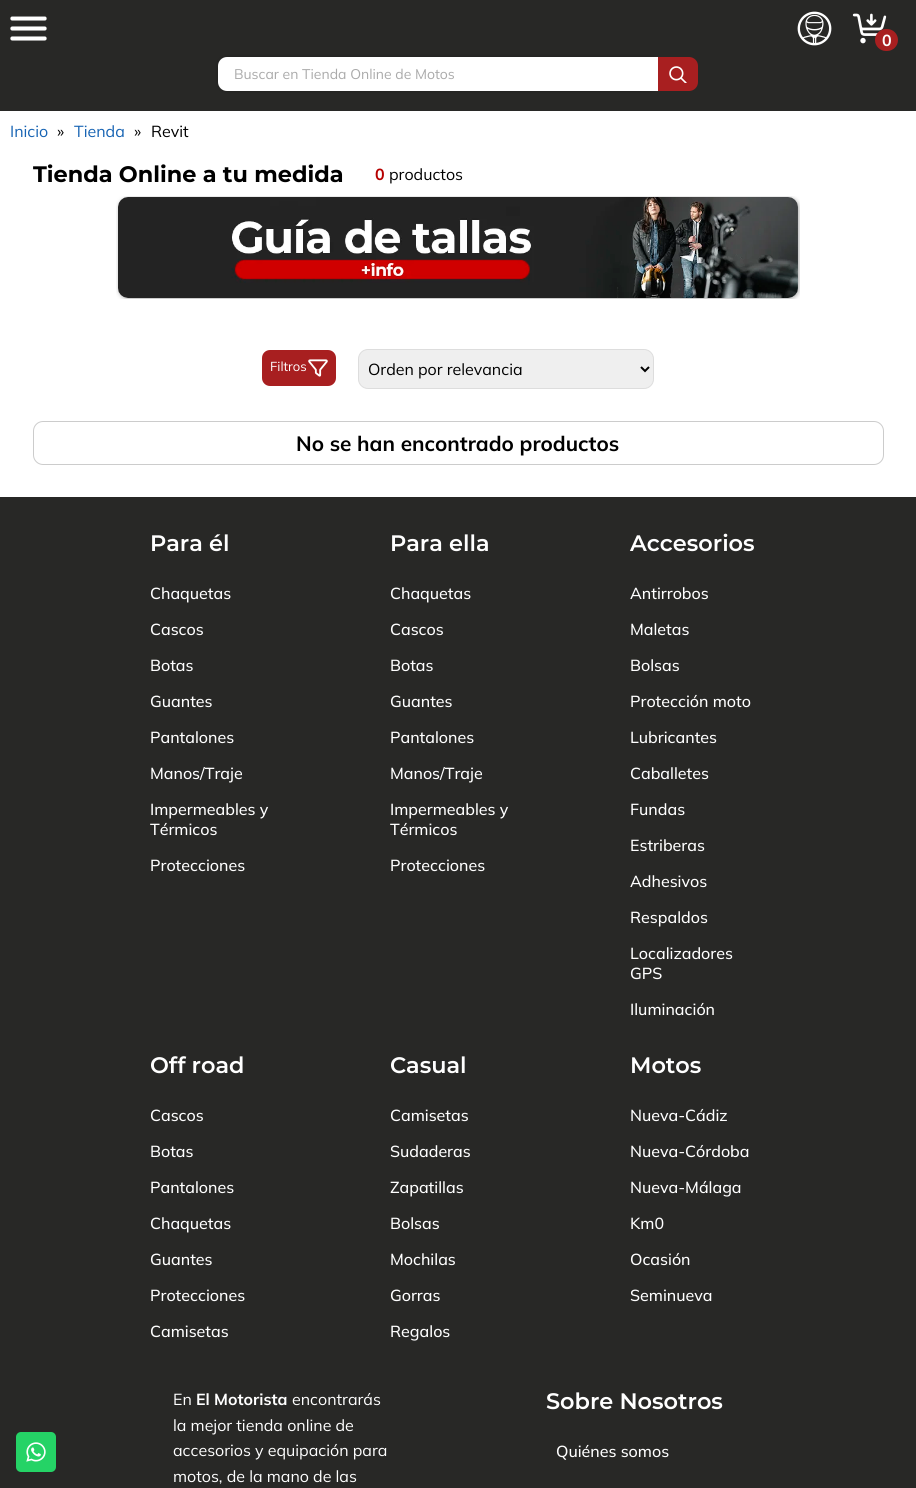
import math
import cairo

surface = cairo.ImageSurface(cairo.FORMAT_RGB24, 916, 1488)
cr = cairo.Context(surface)
options = cairo.FontOptions()
options.set_hint_metrics(cairo.HINT_METRICS_OFF)
options.set_hint_style(cairo.HINT_STYLE_NONE)
cr.set_font_options(options)
cr.set_miter_limit(4)


def rgb(code):
    cr.set_source_rgb(*(v / 255 for v in bytes.fromhex(code[-6:])))


def rrect(x, y, w, h, r):
    cr.new_sub_path()
    for i, (u, v) in enumerate([(x + w - r, y + h - r), (x + r, y + h - r), (x + r, y + r), (x + w - r, y + r)]):
        cr.arc(u, v, r, i * math.pi / 2, (i + 1) * math.pi / 2)
    cr.close_path()


def soft_shadow(x, y, w, h, r, blur, alpha):
    cr.push_group_with_content(cairo.CONTENT_ALPHA)
    cr.set_operator(cairo.OPERATOR_SOURCE)
    for i in range(15, -16, -2):
        e = blur * i / 6
        if min(w, h) + 2 * e > 0:
            cr.set_source_rgba(0, 0, 0, alpha * math.erfc((i - 1) / 8.5) / 2)
            rrect(x - e, y - e, w + 2 * e, h + 2 * e, max(0, min(r + e + blur * .6, min(w, h) / 2 + e)))
            cr.fill()
    cr.mask(cr.pop_group())


def image(path, x, y, w, h):
    cr.save()
    cr.set_source_surface(cairo.ImageSurface.create_from_png(path), x, y)
    cr.rectangle(x, y, w, h)
    cr.fill()
    cr.restore()


rgb("#ffffff")
cr.paint()
rgb("#282826")
cr.rectangle(0, 0, 916, 111)
cr.fill()
image("img/1.png", 10, 16, 37, 25)
image("img/2.png", 797, 11, 35, 35)
image("img/3.png", 852, 13, 35, 31)
rgb("#a81f20")
rrect(875, 29, 23, 22, 11)
cr.fill()
rgb("#000000")
soft_shadow(218, 57, 440, 34, 9, 2, 0.25)
rgb("#ffffff")
cr.new_path()
cr.move_to(227, 57)
cr.line_to(658, 57)
cr.line_to(658, 91)
cr.line_to(227, 91)
cr.curve_to(222, 91, 218, 87, 218, 82)
cr.line_to(218, 66)
cr.curve_to(218, 61, 222, 57, 227, 57)
cr.close_path()
cr.fill()
rgb("#a81f20")
cr.new_path()
cr.move_to(658, 57)
cr.line_to(689, 57)
cr.curve_to(694, 57, 698, 61, 698, 66)
cr.line_to(698, 82)
cr.curve_to(698, 87, 694, 91, 689, 91)
cr.line_to(658, 91)
cr.close_path()
cr.fill()
image("img/4.png", 669, 66, 18, 17)
image("img/5.png", 116, 196, 684, 103)
rrect(262, 350, 74, 36, 8)
cr.fill()
image("img/6.png", 308, 359, 20, 18)
rgb("#efefef")
rrect(358.5, 349.5, 295, 39, 9.5)
cr.fill_preserve()
rgb("#dddddd")
cr.set_line_width(1)
cr.stroke()
cr.new_path()
cr.move_to(641, 367)
cr.line_to(645, 371)
cr.line_to(649, 367)
rgb("#000000")
cr.set_line_width(2)
cr.stroke()
rrect(33.5, 421.5, 850, 43, 9.5)
rgb("#cccccc")
cr.set_line_width(1)
cr.stroke()
rgb("#282826")
cr.rectangle(0, 497, 916, 991)
cr.fill()
rgb("#25d366")
rrect(16, 1432, 40, 40, 5)
cr.fill()
image("img/7.png", 26, 1442, 20, 20)
cr.select_font_face("Mulish", cairo.FONT_SLANT_NORMAL, cairo.FONT_WEIGHT_BOLD)
cr.set_font_size(16)
rgb("#ffffff")
cr.move_to(882, 46)
cr.show_text("0")
cr.select_font_face("Mulish")
cr.set_font_size(14)
rgb("#aaaaaa")
cr.move_to(234, 79)
cr.show_text("Buscar en Tienda Online de Motos")
cr.set_font_size(16)
rgb("#1663b3")
cr.move_to(10, 137)
cr.show_text("Inicio")
rgb("#000000")
cr.move_to(57, 137)
cr.show_text("»")
rgb("#1663b3")
cr.move_to(74, 137)
cr.show_text("Tienda")
rgb("#000000")
cr.move_to(134, 137)
cr.show_text("»")
cr.move_to(151, 137)
cr.show_text("Revit")
cr.save()
cr.rectangle(33, 160, 310, 28)
cr.clip()
cr.select_font_face("Montserrat", cairo.FONT_SLANT_NORMAL, cairo.FONT_WEIGHT_BOLD)
cr.set_font_size(22.4)
cr.move_to(33, 182)
cr.show_text("Tienda Online a tu medida")
cr.restore()
cr.select_font_face("Mulish", cairo.FONT_SLANT_NORMAL, cairo.FONT_WEIGHT_BOLD)
rgb("#b60000")
cr.move_to(375, 180)
cr.show_text("0")
cr.select_font_face("Mulish")
rgb("#000000")
cr.move_to(389, 180)
cr.show_text("productos")
cr.set_font_size(13)
rgb("#ffffff")
cr.move_to(270, 371)
cr.show_text("Filtros")
cr.set_font_size(16)
rgb("#000000")
cr.move_to(368, 375)
cr.show_text("Orden por relevancia")
cr.select_font_face("Mulish", cairo.FONT_SLANT_NORMAL, cairo.FONT_WEIGHT_BOLD)
cr.set_font_size(20.75)
cr.move_to(296, 451)
cr.show_text("No se han encontrado productos")
cr.select_font_face("Montserrat SemiBold")
cr.set_font_size(22.4)
rgb("#ffffff")
cr.move_to(150, 551)
cr.show_text("Para él")
cr.select_font_face("Mulish Medium")
cr.set_font_size(16)
for x, y, s in [
    (150, 599, "Chaquetas"),
    (150, 635, "Cascos"),
    (150, 671, "Botas"),
    (150, 707, "Guantes"),
    (150, 743, "Pantalones"),
    (150, 779, "Manos/Traje"),
    (150, 815, "Impermeables y"),
    (150, 835, "Térmicos"),
    (150, 871, "Protecciones"),
]:
    cr.move_to(x, y)
    cr.show_text(s)
cr.select_font_face("Montserrat SemiBold")
cr.set_font_size(22.4)
cr.move_to(390, 551)
cr.show_text("Para ella")
cr.select_font_face("Mulish Medium")
cr.set_font_size(16)
for x, y, s in [
    (390, 599, "Chaquetas"),
    (390, 635, "Cascos"),
    (390, 671, "Botas"),
    (390, 707, "Guantes"),
    (390, 743, "Pantalones"),
    (390, 779, "Manos/Traje"),
    (390, 815, "Impermeables y"),
    (390, 835, "Térmicos"),
    (390, 871, "Protecciones"),
]:
    cr.move_to(x, y)
    cr.show_text(s)
cr.select_font_face("Montserrat SemiBold")
cr.set_font_size(22.4)
cr.move_to(630, 551)
cr.show_text("Accesorios")
cr.select_font_face("Mulish Medium")
cr.set_font_size(16)
for x, y, s in [
    (630, 599, "Antirrobos"),
    (630, 635, "Maletas"),
    (630, 671, "Bolsas"),
    (630, 707, "Protección moto"),
    (630, 743, "Lubricantes"),
    (630, 779, "Caballetes"),
    (630, 815, "Fundas"),
    (630, 851, "Estriberas"),
    (630, 887, "Adhesivos"),
    (630, 923, "Respaldos"),
    (630, 959, "Localizadores"),
    (630, 979, "GPS"),
    (630, 1015, "Iluminación"),
]:
    cr.move_to(x, y)
    cr.show_text(s)
cr.select_font_face("Montserrat SemiBold")
cr.set_font_size(22.4)
cr.move_to(150, 1073)
cr.show_text("Off road")
cr.select_font_face("Mulish Medium")
cr.set_font_size(16)
for x, y, s in [
    (150, 1121, "Cascos"),
    (150, 1157, "Botas"),
    (150, 1193, "Pantalones"),
    (150, 1229, "Chaquetas"),
    (150, 1265, "Guantes"),
    (150, 1301, "Protecciones"),
    (150, 1337, "Camisetas"),
]:
    cr.move_to(x, y)
    cr.show_text(s)
cr.select_font_face("Montserrat SemiBold")
cr.set_font_size(22.4)
cr.move_to(390, 1073)
cr.show_text("Casual")
cr.select_font_face("Mulish Medium")
cr.set_font_size(16)
for x, y, s in [
    (390, 1121, "Camisetas"),
    (390, 1157, "Sudaderas"),
    (390, 1193, "Zapatillas"),
    (390, 1229, "Bolsas"),
    (390, 1265, "Mochilas"),
    (390, 1301, "Gorras"),
    (390, 1337, "Regalos"),
]:
    cr.move_to(x, y)
    cr.show_text(s)
cr.select_font_face("Montserrat SemiBold")
cr.set_font_size(22.4)
cr.move_to(630, 1073)
cr.show_text("Motos")
cr.select_font_face("Mulish Medium")
cr.set_font_size(16)
for x, y, s in [
    (630, 1121, "Nueva-Cádiz"),
    (630, 1157, "Nueva-Córdoba"),
    (630, 1193, "Nueva-Málaga"),
    (630, 1229, "Km0"),
    (630, 1265, "Ocasión"),
    (630, 1301, "Seminueva"),
]:
    cr.move_to(x, y)
    cr.show_text(s)
cr.select_font_face("Mulish")
cr.move_to(173, 1405)
cr.show_text("En")
cr.select_font_face("Mulish", cairo.FONT_SLANT_NORMAL, cairo.FONT_WEIGHT_BOLD)
cr.move_to(196, 1405)
cr.show_text("El Motorista")
cr.select_font_face("Mulish")
for x, y, s in [
    (292, 1405, "encontrarás"),
    (173, 1431, "la mejor tienda online de"),
    (173, 1456, "accesorios y equipación para"),
    (173, 1482, "motos, de la mano de las"),
]:
    cr.move_to(x, y)
    cr.show_text(s)
cr.select_font_face("Montserrat SemiBold")
cr.set_font_size(22.4)
cr.move_to(546, 1409)
cr.show_text("Sobre Nosotros")
cr.select_font_face("Mulish Medium")
cr.set_font_size(16)
cr.move_to(556, 1457)
cr.show_text("Quiénes somos")
surface.write_to_png("page.png")
